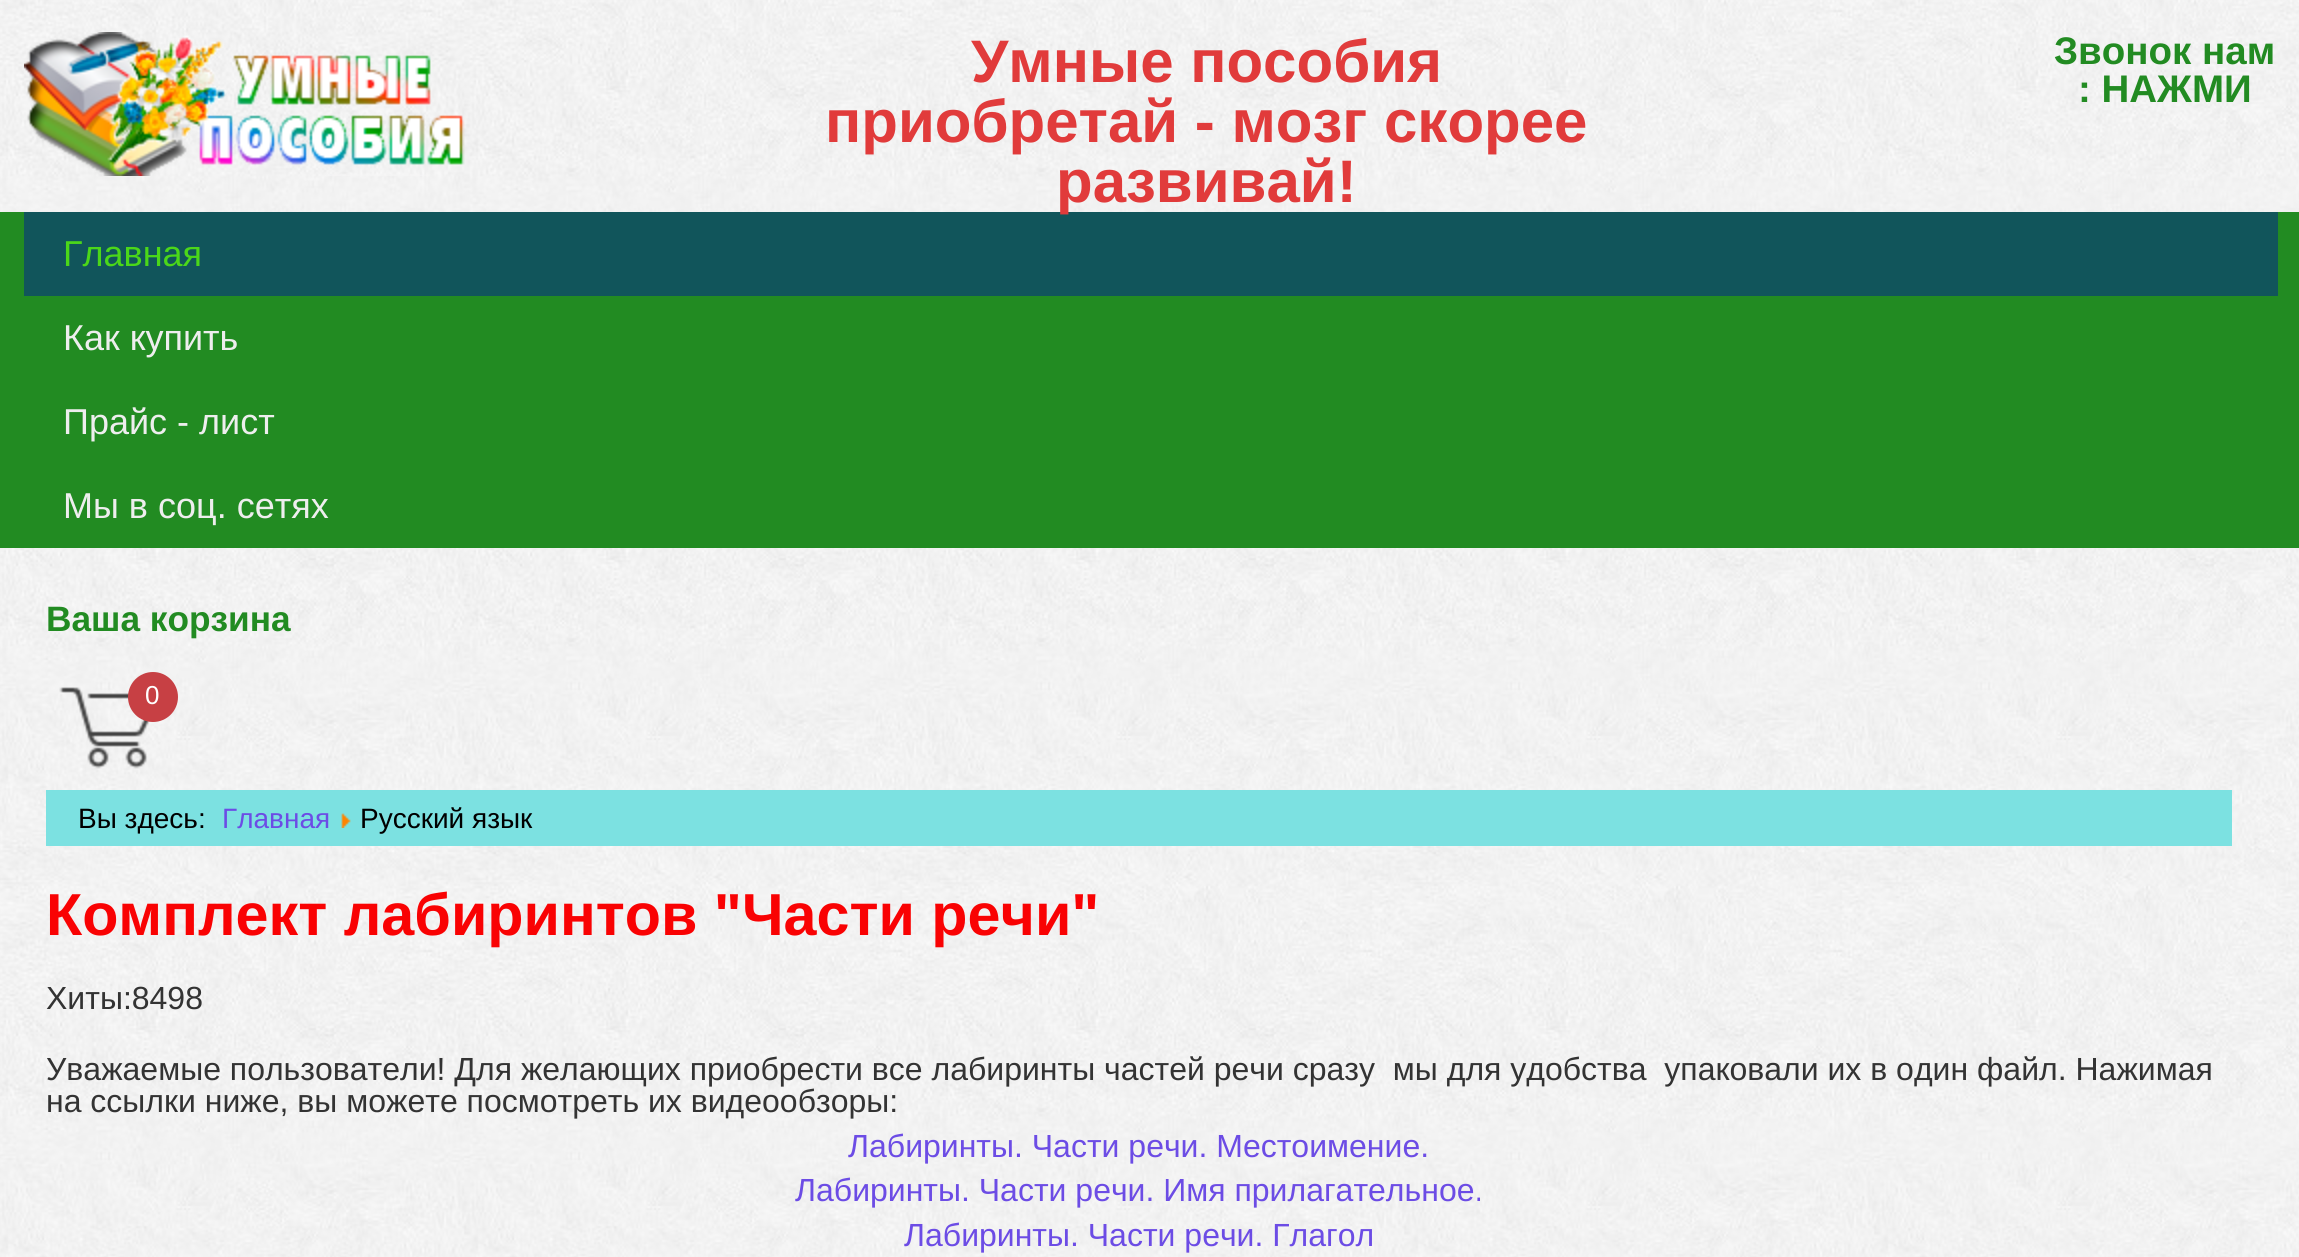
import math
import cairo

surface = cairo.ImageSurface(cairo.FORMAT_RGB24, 2299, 1257)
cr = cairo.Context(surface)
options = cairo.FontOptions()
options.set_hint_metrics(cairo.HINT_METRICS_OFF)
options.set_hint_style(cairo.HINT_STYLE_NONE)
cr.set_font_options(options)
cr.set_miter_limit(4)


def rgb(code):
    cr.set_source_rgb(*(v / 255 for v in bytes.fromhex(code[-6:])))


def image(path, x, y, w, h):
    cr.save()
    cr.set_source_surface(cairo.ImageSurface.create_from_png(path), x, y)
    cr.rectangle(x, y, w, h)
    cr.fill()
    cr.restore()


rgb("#ffffff")
cr.paint()
image("img/1.png", 0, 0, 2299, 1257)
image("img/2.png", 24, 32, 441, 144)
rgb("#228b22")
cr.rectangle(0, 212, 2299, 336)
cr.fill()
rgb("#11555b")
cr.rectangle(24, 212, 2254, 84)
cr.fill()
image("img/3.png", 59, 687, 91, 82)
rgb("#c74044")
cr.arc(153, 697, 25, 0, 2 * math.pi)
cr.fill()
rgb("#7ce1e1")
cr.rectangle(46, 790, 2186, 56)
cr.fill()
image("img/4.png", 341, 813, 10, 15)
cr.select_font_face("Liberation Sans", cairo.FONT_SLANT_NORMAL, cairo.FONT_WEIGHT_BOLD)
cr.set_font_size(60)
rgb("#e13b3b")
for x, y, s in [
    (971, 82, "Умные пособия"),
    (825, 142, "приобретай - мозг скорее"),
    (1056, 202, "развивай!"),
]:
    cr.move_to(x, y)
    cr.show_text(s)
cr.set_font_size(38.5)
rgb("#228b22")
cr.move_to(2054, 64)
cr.show_text("Звонок нам")
cr.move_to(2078, 102)
cr.show_text(": НАЖМИ")
cr.select_font_face("Liberation Sans")
cr.set_font_size(36)
rgb("#4bd719")
cr.move_to(63, 266)
cr.show_text("Главная")
rgb("#eeeeee")
for x, y, s in [
    (63, 350, "Как купить"),
    (63, 434, "Прайс - лист"),
    (63, 518, "Мы в соц. сетях"),
]:
    cr.move_to(x, y)
    cr.show_text(s)
cr.select_font_face("Liberation Sans", cairo.FONT_SLANT_NORMAL, cairo.FONT_WEIGHT_BOLD)
cr.set_font_size(35.25)
rgb("#228b22")
cr.move_to(46, 631)
cr.show_text("Ваша корзина")
cr.select_font_face("Liberation Sans")
cr.set_font_size(26)
rgb("#ffffff")
cr.move_to(145, 704)
cr.show_text("0")
cr.set_font_size(28)
rgb("#000000")
cr.move_to(78, 828)
cr.show_text("Вы здесь:")
rgb("#6c4ce5")
cr.move_to(222, 828)
cr.show_text("Главная")
rgb("#000000")
cr.move_to(360, 828)
cr.show_text("Русский язык")
cr.select_font_face("Liberation Sans", cairo.FONT_SLANT_NORMAL, cairo.FONT_WEIGHT_BOLD)
cr.set_font_size(59.25)
rgb("#f90203")
cr.move_to(46, 935)
cr.show_text("Комплект лабиринтов \"Части речи\"")
cr.select_font_face("Liberation Sans")
cr.set_font_size(32)
rgb("#333333")
for x, y, s in [
    (46, 1009, "Хиты:8498"),
    (46, 1080, "Уважаемые пользователи! Для желающих приобрести все лабиринты частей речи сразу  мы для удобства  упаковали их в один файл. Нажимая"),
    (46, 1112, "на ссылки ниже, вы можете посмотреть их видеообзоры:"),
]:
    cr.move_to(x, y)
    cr.show_text(s)
rgb("#6c4ce5")
for x, y, s in [
    (848, 1157, "Лабиринты. Части речи. Местоимение."),
    (795, 1201, "Лабиринты. Части речи. Имя прилагательное."),
    (904, 1246, "Лабиринты. Части речи. Глагол"),
]:
    cr.move_to(x, y)
    cr.show_text(s)
surface.write_to_png("page.png")
